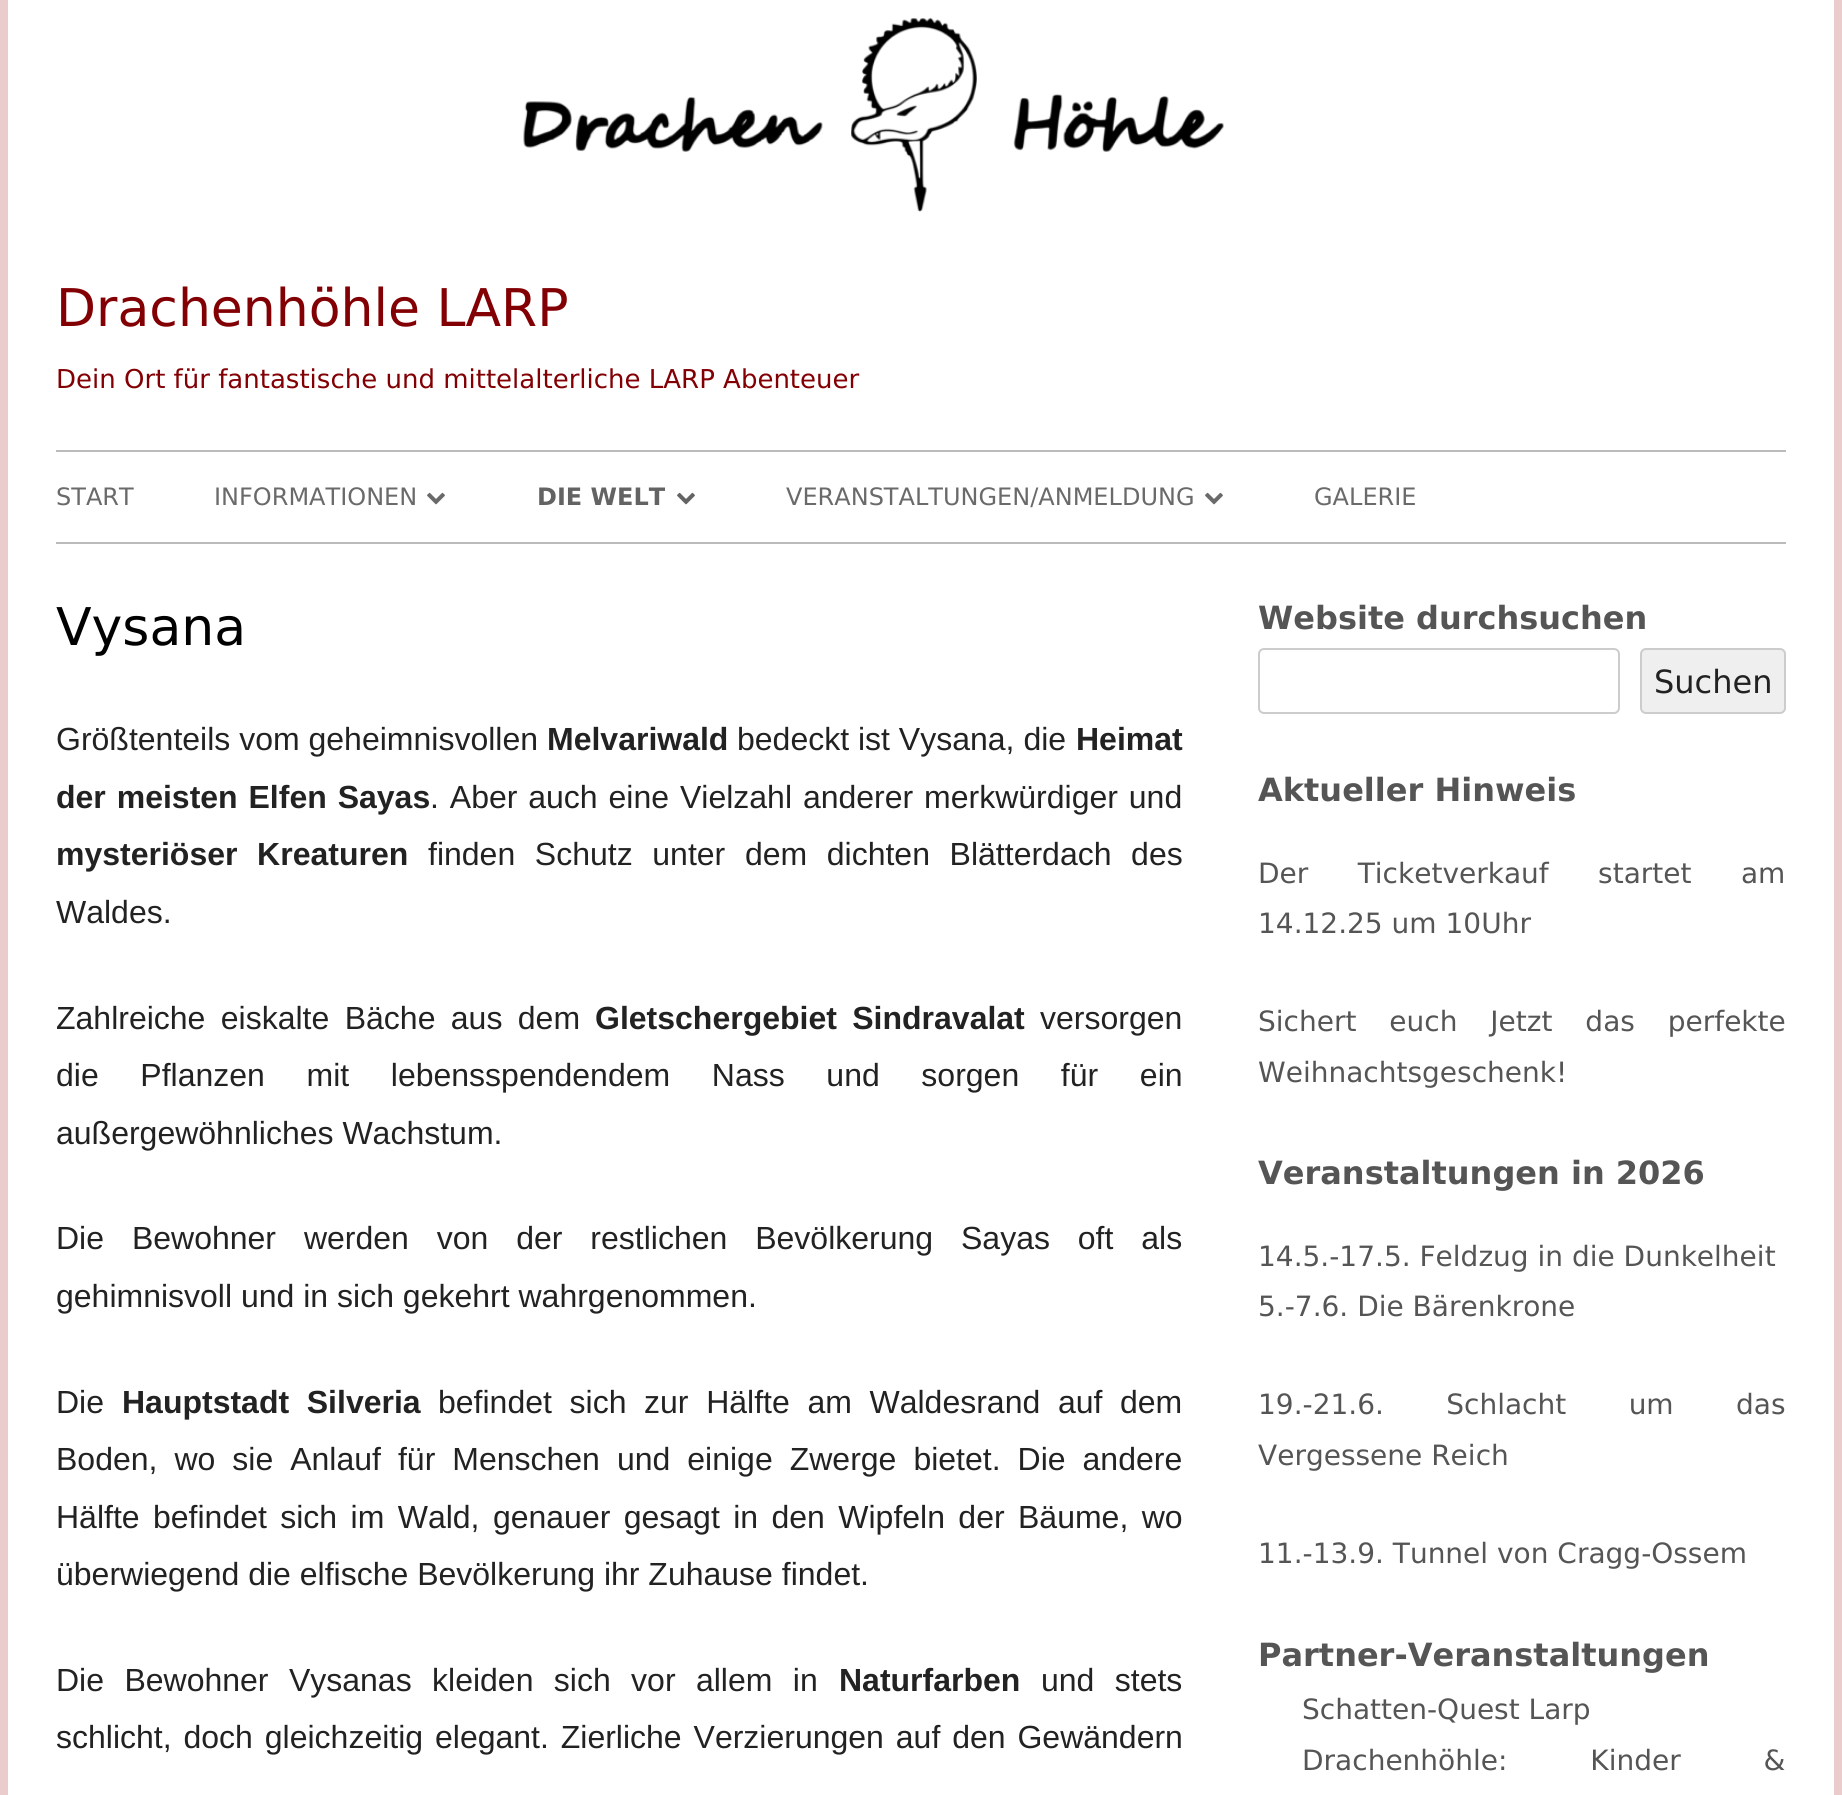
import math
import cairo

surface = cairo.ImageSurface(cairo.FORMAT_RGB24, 1842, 1795)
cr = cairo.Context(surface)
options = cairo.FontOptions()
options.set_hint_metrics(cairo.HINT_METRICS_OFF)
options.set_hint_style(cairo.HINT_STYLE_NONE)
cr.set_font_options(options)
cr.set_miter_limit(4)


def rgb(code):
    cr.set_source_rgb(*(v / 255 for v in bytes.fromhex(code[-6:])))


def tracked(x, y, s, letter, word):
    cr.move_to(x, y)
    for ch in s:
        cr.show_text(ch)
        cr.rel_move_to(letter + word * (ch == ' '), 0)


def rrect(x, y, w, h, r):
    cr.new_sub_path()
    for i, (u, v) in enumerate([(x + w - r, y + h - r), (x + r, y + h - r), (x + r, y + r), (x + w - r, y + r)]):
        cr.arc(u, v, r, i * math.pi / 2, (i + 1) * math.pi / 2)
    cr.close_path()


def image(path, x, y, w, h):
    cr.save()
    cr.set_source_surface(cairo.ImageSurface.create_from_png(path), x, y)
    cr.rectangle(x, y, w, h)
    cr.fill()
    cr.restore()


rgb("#ffffff")
cr.paint()
cr.rectangle(4, -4, 1834, 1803)
rgb("#eacccc")
cr.set_line_width(8)
cr.stroke()
image("img/1.png", 523, 17, 701, 195)
rgb("#bbbbbb")
cr.rectangle(56, 450, 1730, 2)
cr.fill()
cr.rectangle(56, 542, 1730, 2)
cr.fill()
image("img/2.png", 427, 492, 18, 13)
image("img/3.png", 677, 492, 18, 13)
image("img/2.png", 1205, 492, 18, 13)
rrect(1259, 649, 360, 64, 5)
rgb("#cccccc")
cr.set_line_width(2)
cr.stroke()
rgb("#efefef")
rrect(1641, 649, 144, 64, 5)
cr.fill_preserve()
rgb("#cccccc")
cr.stroke()
cr.select_font_face("DejaVu Sans")
cr.set_font_size(52)
rgb("#820004")
cr.move_to(56, 326)
cr.show_text("Drachenhöhle LARP")
cr.set_font_size(26)
cr.move_to(56, 388)
cr.show_text("Dein Ort für fantastische und mittelalterliche LARP Abenteuer")
cr.set_font_size(24)
rgb("#6a6a6a")
cr.move_to(56, 505)
cr.show_text("START")
cr.move_to(214, 505)
cr.show_text("INFORMATIONEN")
cr.select_font_face("DejaVu Sans", cairo.FONT_SLANT_NORMAL, cairo.FONT_WEIGHT_BOLD)
rgb("#636363")
cr.move_to(537, 505)
cr.show_text("DIE WELT")
cr.select_font_face("DejaVu Sans")
rgb("#6a6a6a")
cr.move_to(786, 505)
cr.show_text("VERANSTALTUNGEN/ANMELDUNG")
cr.move_to(1314, 505)
cr.show_text("GALERIE")
cr.set_font_size(52)
rgb("#000000")
cr.move_to(56, 645)
cr.show_text("Vysana")
cr.select_font_face("Liberation Sans")
cr.set_font_size(32)
rgb("#222222")
cr.move_to(56, 750)
cr.show_text("Größtenteils vom geheimnisvollen")
cr.select_font_face("Liberation Sans", cairo.FONT_SLANT_NORMAL, cairo.FONT_WEIGHT_BOLD)
cr.move_to(547, 750)
cr.show_text("Melvariwald")
cr.select_font_face("Liberation Sans")
cr.move_to(737, 750)
cr.show_text("bedeckt ist Vysana, die")
cr.select_font_face("Liberation Sans", cairo.FONT_SLANT_NORMAL, cairo.FONT_WEIGHT_BOLD)
cr.move_to(1076, 750)
cr.show_text("Heimat")
tracked(56, 808, "der meisten Elfen Sayas", 0, 2)
cr.select_font_face("Liberation Sans")
tracked(430, 808, ". Aber auch eine Vielzahl anderer merkwürdiger und", 0, 2)
cr.select_font_face("Liberation Sans", cairo.FONT_SLANT_NORMAL, cairo.FONT_WEIGHT_BOLD)
tracked(56, 865, "mysteriöser Kreaturen", 0, 10.75)
cr.select_font_face("Liberation Sans")
tracked(428, 865, "finden Schutz unter dem dichten Blätterdach des", 0, 10.75)
cr.move_to(56, 923)
cr.show_text("Waldes.")
tracked(56, 1029, "Zahlreiche eiskalte Bäche aus dem", 0, 6.5)
cr.select_font_face("Liberation Sans", cairo.FONT_SLANT_NORMAL, cairo.FONT_WEIGHT_BOLD)
tracked(595, 1029, "Gletschergebiet Sindravalat", 0, 6.5)
cr.select_font_face("Liberation Sans")
cr.move_to(1040, 1029)
cr.show_text("versorgen")
tracked(56, 1086, "die Pflanzen mit lebensspendendem Nass und sorgen für ein", 0, 32.75)
cr.move_to(56, 1144)
cr.show_text("außergewöhnliches Wachstum.")
tracked(56, 1249, "Die Bewohner werden von der restlichen Bevölkerung Sayas oft als", 0, 19)
cr.move_to(56, 1307)
cr.show_text("gehimnisvoll und in sich gekehrt wahrgenommen.")
cr.move_to(56, 1413)
cr.show_text("Die")
cr.select_font_face("Liberation Sans", cairo.FONT_SLANT_NORMAL, cairo.FONT_WEIGHT_BOLD)
tracked(122, 1413, "Hauptstadt Silveria", 0, 8.75)
cr.select_font_face("Liberation Sans")
tracked(438, 1413, "befindet sich zur Hälfte am Waldesrand auf dem", 0, 8.75)
tracked(56, 1470, "Boden, wo sie Anlauf für Menschen und einige Zwerge bietet. Die andere", 0, 8.1)
tracked(56, 1528, "Hälfte befindet sich im Wald, genauer gesagt in den Wipfeln der Bäume, wo", 0, 4.5)
cr.move_to(56, 1585)
cr.show_text("überwiegend die elfische Bevölkerung ihr Zuhause findet.")
tracked(56, 1691, "Die Bewohner Vysanas kleiden sich vor allem in", 0, 11.5)
cr.select_font_face("Liberation Sans", cairo.FONT_SLANT_NORMAL, cairo.FONT_WEIGHT_BOLD)
cr.move_to(839, 1691)
cr.show_text("Naturfarben")
cr.select_font_face("Liberation Sans")
tracked(1041, 1691, "und stets", 0, 11.5)
tracked(56, 1748, "schlicht, doch gleichzeitig elegant. Zierliche Verzierungen auf den Gewändern", 0, 3)
cr.select_font_face("DejaVu Sans", cairo.FONT_SLANT_NORMAL, cairo.FONT_WEIGHT_BOLD)
rgb("#555555")
cr.move_to(1258, 629)
cr.show_text("Website durchsuchen")
cr.select_font_face("DejaVu Sans")
rgb("#222222")
cr.move_to(1654, 693)
cr.show_text("Suchen")
cr.select_font_face("DejaVu Sans", cairo.FONT_SLANT_NORMAL, cairo.FONT_WEIGHT_BOLD)
rgb("#555555")
cr.move_to(1258, 801)
cr.show_text("Aktueller Hinweis")
cr.select_font_face("DejaVu Sans")
cr.set_font_size(28)
tracked(1258, 883, "Der Ticketverkauf startet am", 0, 40.5)
cr.move_to(1258, 933)
cr.show_text("14.12.25 um 10Uhr")
tracked(1258, 1031, "Sichert euch Jetzt das perfekte", 0, 24)
cr.move_to(1258, 1082)
cr.show_text("Weihnachtsgeschenk!")
cr.select_font_face("DejaVu Sans", cairo.FONT_SLANT_NORMAL, cairo.FONT_WEIGHT_BOLD)
cr.set_font_size(32)
cr.move_to(1258, 1184)
cr.show_text("Veranstaltungen in 2026")
cr.select_font_face("DejaVu Sans")
cr.set_font_size(28)
cr.move_to(1258, 1266)
cr.show_text("14.5.-17.5. Feldzug in die Dunkelheit")
cr.move_to(1258, 1316)
cr.show_text("5.-7.6. Die Bärenkrone")
tracked(1258, 1414, "19.-21.6. Schlacht um das", 0, 53.5)
cr.move_to(1258, 1465)
cr.show_text("Vergessene Reich")
cr.move_to(1258, 1563)
cr.show_text("11.-13.9. Tunnel von Cragg-Ossem")
cr.select_font_face("DejaVu Sans", cairo.FONT_SLANT_NORMAL, cairo.FONT_WEIGHT_BOLD)
cr.set_font_size(32)
cr.move_to(1258, 1666)
cr.show_text("Partner-Veranstaltungen")
cr.select_font_face("DejaVu Sans")
cr.set_font_size(28)
cr.move_to(1302, 1719)
cr.show_text("Schatten-Quest Larp")
tracked(1302, 1770, "Drachenhöhle: Kinder &", 0, 74)
surface.write_to_png("page.png")
